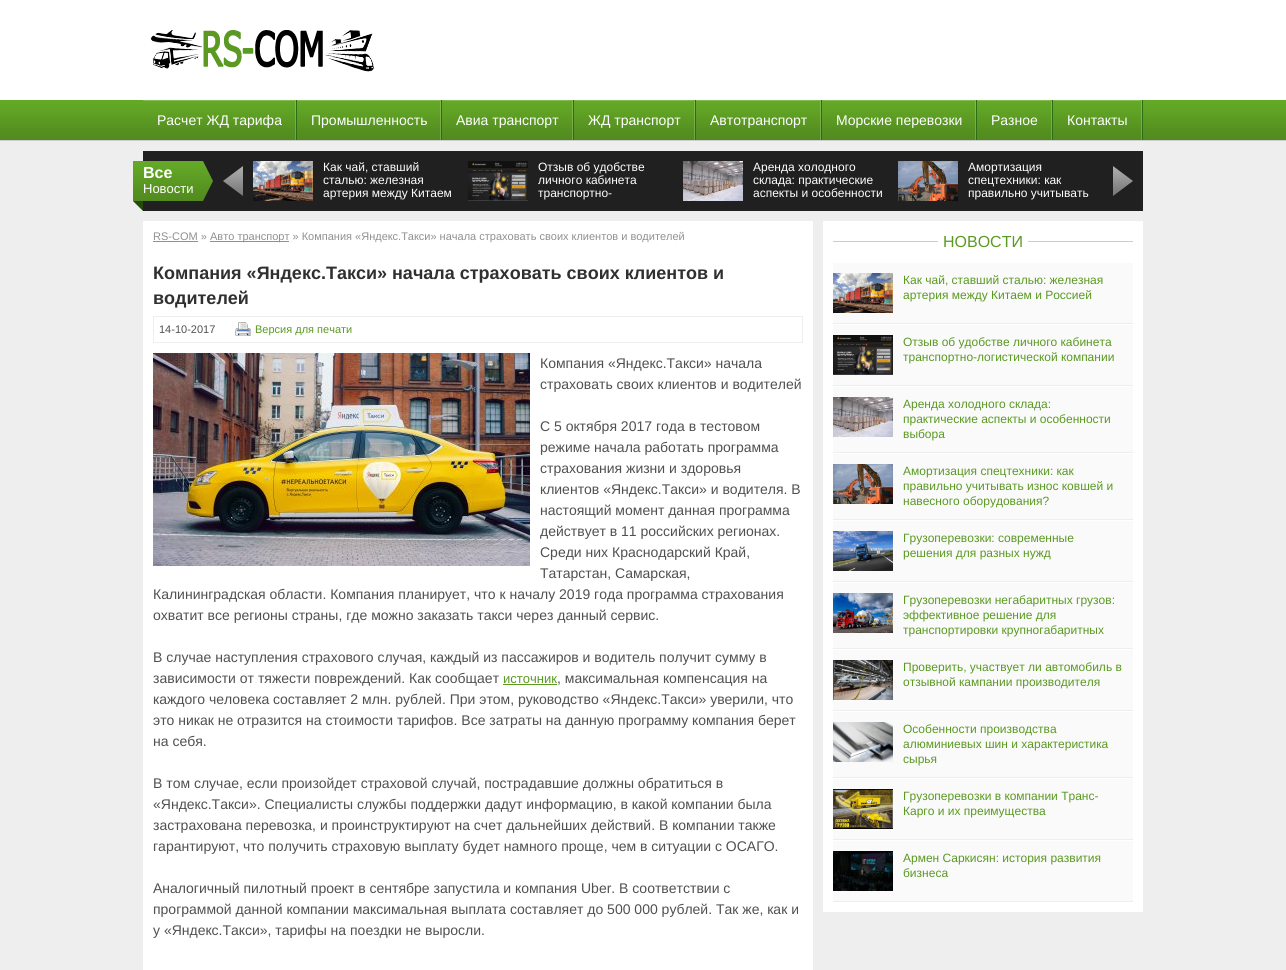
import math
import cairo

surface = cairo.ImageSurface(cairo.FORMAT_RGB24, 1286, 970)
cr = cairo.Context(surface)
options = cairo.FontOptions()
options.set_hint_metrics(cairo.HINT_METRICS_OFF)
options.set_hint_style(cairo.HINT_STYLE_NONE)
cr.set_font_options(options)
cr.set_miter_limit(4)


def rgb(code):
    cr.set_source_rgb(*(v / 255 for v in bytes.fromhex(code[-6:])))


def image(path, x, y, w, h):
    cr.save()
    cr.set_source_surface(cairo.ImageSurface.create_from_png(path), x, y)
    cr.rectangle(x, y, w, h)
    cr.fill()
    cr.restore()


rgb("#eeeeee")
cr.paint()
rgb("#ffffff")
cr.rectangle(0, 0, 1286, 100)
cr.fill()
image("img/1.png", 151, 30, 223, 42)
image("img/2.png", 0, 100, 1286, 40)
rgb("#cccccc")
cr.rectangle(0, 140, 1286, 1)
cr.fill()
cr.save()
cr.rectangle(143, 100, 153, 40)
cr.clip()
cr.set_source_rgba(1, 1, 1, 0.2)
cr.set_fill_rule(cairo.FILL_RULE_EVEN_ODD)
cr.new_path()
cr.move_to(44, 1)
cr.line_to(395, 1)
cr.line_to(395, 239)
cr.line_to(44, 239)
cr.close_path()
cr.move_to(142, 101)
cr.line_to(295, 101)
cr.line_to(295, 141)
cr.line_to(142, 141)
cr.close_path()
cr.fill()
cr.restore()
rgb("#2c6d15")
cr.rectangle(296, 100, 1, 40)
cr.fill()
cr.save()
cr.rectangle(297, 100, 144, 40)
cr.clip()
cr.set_source_rgba(1, 1, 1, 0.2)
cr.set_fill_rule(cairo.FILL_RULE_EVEN_ODD)
cr.new_path()
cr.move_to(198, 1)
cr.line_to(540, 1)
cr.line_to(540, 239)
cr.line_to(198, 239)
cr.close_path()
cr.move_to(296, 101)
cr.line_to(440, 101)
cr.line_to(440, 141)
cr.line_to(296, 141)
cr.close_path()
cr.fill()
cr.restore()
cr.rectangle(441, 100, 1, 40)
cr.fill()
cr.save()
cr.rectangle(442, 100, 131, 40)
cr.clip()
cr.set_source_rgba(1, 1, 1, 0.2)
cr.set_fill_rule(cairo.FILL_RULE_EVEN_ODD)
cr.new_path()
cr.move_to(343, 1)
cr.line_to(672, 1)
cr.line_to(672, 239)
cr.line_to(343, 239)
cr.close_path()
cr.move_to(441, 101)
cr.line_to(572, 101)
cr.line_to(572, 141)
cr.line_to(441, 141)
cr.close_path()
cr.fill()
cr.restore()
cr.rectangle(573, 100, 1, 40)
cr.fill()
cr.save()
cr.rectangle(574, 100, 121, 40)
cr.clip()
cr.set_source_rgba(1, 1, 1, 0.2)
cr.set_fill_rule(cairo.FILL_RULE_EVEN_ODD)
cr.new_path()
cr.move_to(475, 1)
cr.line_to(794, 1)
cr.line_to(794, 239)
cr.line_to(475, 239)
cr.close_path()
cr.move_to(573, 101)
cr.line_to(694, 101)
cr.line_to(694, 141)
cr.line_to(573, 141)
cr.close_path()
cr.fill()
cr.restore()
cr.rectangle(695, 100, 1, 40)
cr.fill()
cr.save()
cr.rectangle(696, 100, 125, 40)
cr.clip()
cr.set_source_rgba(1, 1, 1, 0.2)
cr.set_fill_rule(cairo.FILL_RULE_EVEN_ODD)
cr.new_path()
cr.move_to(597, 1)
cr.line_to(920, 1)
cr.line_to(920, 239)
cr.line_to(597, 239)
cr.close_path()
cr.move_to(695, 101)
cr.line_to(820, 101)
cr.line_to(820, 141)
cr.line_to(695, 141)
cr.close_path()
cr.fill()
cr.restore()
cr.rectangle(821, 100, 1, 40)
cr.fill()
cr.save()
cr.rectangle(822, 100, 154, 40)
cr.clip()
cr.set_source_rgba(1, 1, 1, 0.2)
cr.set_fill_rule(cairo.FILL_RULE_EVEN_ODD)
cr.new_path()
cr.move_to(723, 1)
cr.line_to(1075, 1)
cr.line_to(1075, 239)
cr.line_to(723, 239)
cr.close_path()
cr.move_to(821, 101)
cr.line_to(975, 101)
cr.line_to(975, 141)
cr.line_to(821, 141)
cr.close_path()
cr.fill()
cr.restore()
cr.rectangle(976, 100, 1, 40)
cr.fill()
cr.save()
cr.rectangle(977, 100, 75, 40)
cr.clip()
cr.set_source_rgba(1, 1, 1, 0.2)
cr.set_fill_rule(cairo.FILL_RULE_EVEN_ODD)
cr.new_path()
cr.move_to(878, 1)
cr.line_to(1151, 1)
cr.line_to(1151, 239)
cr.line_to(878, 239)
cr.close_path()
cr.move_to(976, 101)
cr.line_to(1051, 101)
cr.line_to(1051, 141)
cr.line_to(976, 141)
cr.close_path()
cr.fill()
cr.restore()
cr.rectangle(1052, 100, 1, 40)
cr.fill()
cr.save()
cr.rectangle(1053, 100, 89, 40)
cr.clip()
cr.set_source_rgba(1, 1, 1, 0.2)
cr.set_fill_rule(cairo.FILL_RULE_EVEN_ODD)
cr.new_path()
cr.move_to(954, 1)
cr.line_to(1241, 1)
cr.line_to(1241, 239)
cr.line_to(954, 239)
cr.close_path()
cr.move_to(1052, 101)
cr.line_to(1141, 101)
cr.line_to(1141, 141)
cr.line_to(1052, 141)
cr.close_path()
cr.fill()
cr.restore()
cr.rectangle(1142, 100, 1, 40)
cr.fill()
rgb("#202020")
cr.rectangle(143, 151, 1000, 60)
cr.fill()
image("img/3.png", 133, 161, 80, 50)
image("img/4.png", 223, 166, 20, 30)
image("img/5.png", 253, 161, 60, 40)
image("img/6.png", 468, 161, 60, 40)
image("img/7.png", 683, 161, 60, 40)
image("img/8.png", 898, 161, 60, 40)
image("img/9.png", 1113, 166, 20, 30)
for x, y, w, h, color in [
    (143, 221, 670, 749, "#ffffff"),
    (153, 241, 45, 1, "#909090"),
    (210, 241, 79, 1, "#909090"),
]:
    rgb(color)
    cr.rectangle(x, y, w, h)
    cr.fill()
cr.rectangle(153.5, 316.5, 649, 26)
rgb("#eeeeee")
cr.set_line_width(1)
cr.stroke()
image("img/10.png", 235, 322, 16, 14)
image("img/11.png", 153, 353, 377, 213)
for x, y, w, h, color in [
    (503, 684, 54, 1, "#5a9922"),
    (823, 221, 320, 691, "#ffffff"),
    (833, 241, 300, 1, "#cccccc"),
    (938, 241, 90, 1, "#ffffff"),
    (833, 263, 300, 60, "#fafafa"),
    (833, 323, 300, 1, "#eeeeee"),
]:
    rgb(color)
    cr.rectangle(x, y, w, h)
    cr.fill()
image("img/12.png", 833, 273, 60, 40)
rgb("#fafafa")
cr.rectangle(833, 325, 300, 60)
cr.fill()
rgb("#eeeeee")
cr.rectangle(833, 385, 300, 1)
cr.fill()
image("img/13.png", 833, 335, 60, 40)
rgb("#fafafa")
cr.rectangle(833, 387, 300, 65)
cr.fill()
rgb("#eeeeee")
cr.rectangle(833, 452, 300, 1)
cr.fill()
image("img/7.png", 833, 397, 60, 40)
rgb("#fafafa")
cr.rectangle(833, 454, 300, 65)
cr.fill()
rgb("#eeeeee")
cr.rectangle(833, 519, 300, 1)
cr.fill()
image("img/14.png", 833, 464, 60, 40)
rgb("#fafafa")
cr.rectangle(833, 521, 300, 60)
cr.fill()
rgb("#eeeeee")
cr.rectangle(833, 581, 300, 1)
cr.fill()
image("img/15.png", 833, 531, 60, 40)
rgb("#fafafa")
cr.rectangle(833, 583, 300, 65)
cr.fill()
rgb("#eeeeee")
cr.rectangle(833, 648, 300, 1)
cr.fill()
image("img/16.png", 833, 593, 60, 40)
rgb("#fafafa")
cr.rectangle(833, 650, 300, 60)
cr.fill()
rgb("#eeeeee")
cr.rectangle(833, 710, 300, 1)
cr.fill()
image("img/17.png", 833, 660, 60, 40)
rgb("#fafafa")
cr.rectangle(833, 712, 300, 65)
cr.fill()
rgb("#eeeeee")
cr.rectangle(833, 777, 300, 1)
cr.fill()
image("img/18.png", 833, 722, 60, 40)
rgb("#fafafa")
cr.rectangle(833, 779, 300, 60)
cr.fill()
rgb("#eeeeee")
cr.rectangle(833, 839, 300, 1)
cr.fill()
image("img/19.png", 833, 789, 60, 40)
rgb("#fafafa")
cr.rectangle(833, 841, 300, 60)
cr.fill()
rgb("#eeeeee")
cr.rectangle(833, 901, 300, 1)
cr.fill()
image("img/20.png", 833, 851, 60, 40)
cr.select_font_face("Liberation Sans")
cr.set_font_size(14)
rgb("#ffffff")
for x, y, s in [
    (157, 125, "Расчет ЖД тарифа"),
    (311, 125, "Промышленность"),
    (456, 125, "Авиа транспорт"),
    (588, 125, "ЖД транспорт"),
    (710, 125, "Автотранспорт"),
    (836, 125, "Морские перевозки"),
    (991, 125, "Разное"),
    (1067, 125, "Контакты"),
]:
    cr.move_to(x, y)
    cr.show_text(s)
cr.select_font_face("Liberation Sans", cairo.FONT_SLANT_NORMAL, cairo.FONT_WEIGHT_BOLD)
cr.set_font_size(16)
cr.move_to(143, 178)
cr.show_text("Все")
cr.select_font_face("Liberation Sans")
cr.set_font_size(13)
cr.move_to(143, 193)
cr.show_text("Новости")
cr.set_font_size(12)
for x, y, s in [
    (323, 171, "Как чай, ставший"),
    (323, 184, "сталью: железная"),
    (323, 197, "артерия между Китаем"),
    (538, 171, "Отзыв об удобстве"),
    (538, 184, "личного кабинета"),
    (538, 197, "транспортно-"),
    (753, 171, "Аренда холодного"),
    (753, 184, "склада: практические"),
    (753, 197, "аспекты и особенности"),
    (968, 171, "Амортизация"),
    (968, 184, "спецтехники: как"),
    (968, 197, "правильно учитывать"),
]:
    cr.move_to(x, y)
    cr.show_text(s)
cr.set_font_size(11)
rgb("#909090")
cr.move_to(153, 240)
cr.show_text("RS-COM »")
cr.move_to(210, 240)
cr.show_text("Авто транспорт » Компания «Яндекс.Такси» начала страховать своих клиентов и водителей")
cr.select_font_face("Liberation Sans", cairo.FONT_SLANT_NORMAL, cairo.FONT_WEIGHT_BOLD)
cr.set_font_size(18)
rgb("#303030")
cr.move_to(153, 279)
cr.show_text("Компания «Яндекс.Такси» начала страховать своих клиентов и")
cr.move_to(153, 304)
cr.show_text("водителей")
cr.select_font_face("Liberation Sans")
cr.set_font_size(11)
rgb("#505050")
cr.move_to(159, 333)
cr.show_text("14-10-2017")
rgb("#5a9922")
cr.move_to(255, 333)
cr.show_text("Версия для печати")
cr.set_font_size(14)
rgb("#505050")
for x, y, s in [
    (540, 368, "Компания «Яндекс.Такси» начала"),
    (540, 389, "страховать своих клиентов и водителей"),
    (540, 431, "С 5 октября 2017 года в тестовом"),
    (540, 452, "режиме начала работать программа"),
    (540, 473, "страхования жизни и здоровья"),
    (540, 494, "клиентов «Яндекс.Такси» и водителя. В"),
    (540, 515, "настоящий момент данная программа"),
    (540, 536, "действует в 11 российских регионах."),
    (540, 557, "Среди них Краснодарский Край,"),
    (540, 578, "Татарстан, Самарская,"),
    (153, 599, "Калининградская области. Компания планирует, что к началу 2019 года программа страхования"),
    (153, 620, "охватит все регионы страны, где можно заказать такси через данный сервис."),
    (153, 662, "В случае наступления страхового случая, каждый из пассажиров и водитель получит сумму в"),
    (153, 683, "зависимости от тяжести повреждений. Как сообщает"),
]:
    cr.move_to(x, y)
    cr.show_text(s)
cr.set_font_size(13)
rgb("#5a9922")
cr.move_to(503, 683)
cr.show_text("источник")
cr.set_font_size(14)
rgb("#505050")
for x, y, s in [
    (557, 683, ", максимальная компенсация на"),
    (153, 704, "каждого человека составляет 2 млн. рублей. При этом, руководство «Яндекс.Такси» уверили, что"),
    (153, 725, "это никак не отразится на стоимости тарифов. Все затраты на данную программу компания берет"),
    (153, 746, "на себя."),
    (153, 788, "В том случае, если произойдет страховой случай, пострадавшие должны обратиться в"),
    (153, 809, "«Яндекс.Такси». Специалисты службы поддержки дадут информацию, в какой компании была"),
    (153, 830, "застрахована перевозка, и проинструктируют на счет дальнейших действий. В компании также"),
    (153, 851, "гарантируют, что получить страховую выплату будет намного проще, чем в ситуации с ОСАГО."),
    (153, 893, "Аналогичный пилотный проект в сентябре запустила и компания Uber. В соответствии с"),
    (153, 914, "программой данной компании максимальная выплата составляет до 500 000 рублей. Так же, как и"),
    (153, 935, "у «Яндекс.Такси», тарифы на поездки не выросли."),
]:
    cr.move_to(x, y)
    cr.show_text(s)
cr.set_font_size(16)
rgb("#5a9922")
cr.move_to(943, 247)
cr.show_text("НОВОСТИ")
cr.set_font_size(12)
for x, y, s in [
    (903, 284, "Как чай, ставший сталью: железная"),
    (903, 299, "артерия между Китаем и Россией"),
    (903, 346, "Отзыв об удобстве личного кабинета"),
    (903, 361, "транспортно-логистической компании"),
    (903, 408, "Аренда холодного склада:"),
    (903, 423, "практические аспекты и особенности"),
    (903, 438, "выбора"),
    (903, 475, "Амортизация спецтехники: как"),
    (903, 490, "правильно учитывать износ ковшей и"),
    (903, 505, "навесного оборудования?"),
    (903, 542, "Грузоперевозки: современные"),
    (903, 557, "решения для разных нужд"),
    (903, 604, "Грузоперевозки негабаритных грузов:"),
    (903, 619, "эффективное решение для"),
    (903, 634, "транспортировки крупногабаритных"),
    (903, 671, "Проверить, участвует ли автомобиль в"),
    (903, 686, "отзывной кампании производителя"),
    (903, 733, "Особенности производства"),
    (903, 748, "алюминиевых шин и характеристика"),
    (903, 763, "сырья"),
    (903, 800, "Грузоперевозки в компании Транс-"),
    (903, 815, "Карго и их преимущества"),
    (903, 862, "Армен Саркисян: история развития"),
    (903, 877, "бизнеса"),
]:
    cr.move_to(x, y)
    cr.show_text(s)
surface.write_to_png("page.png")
